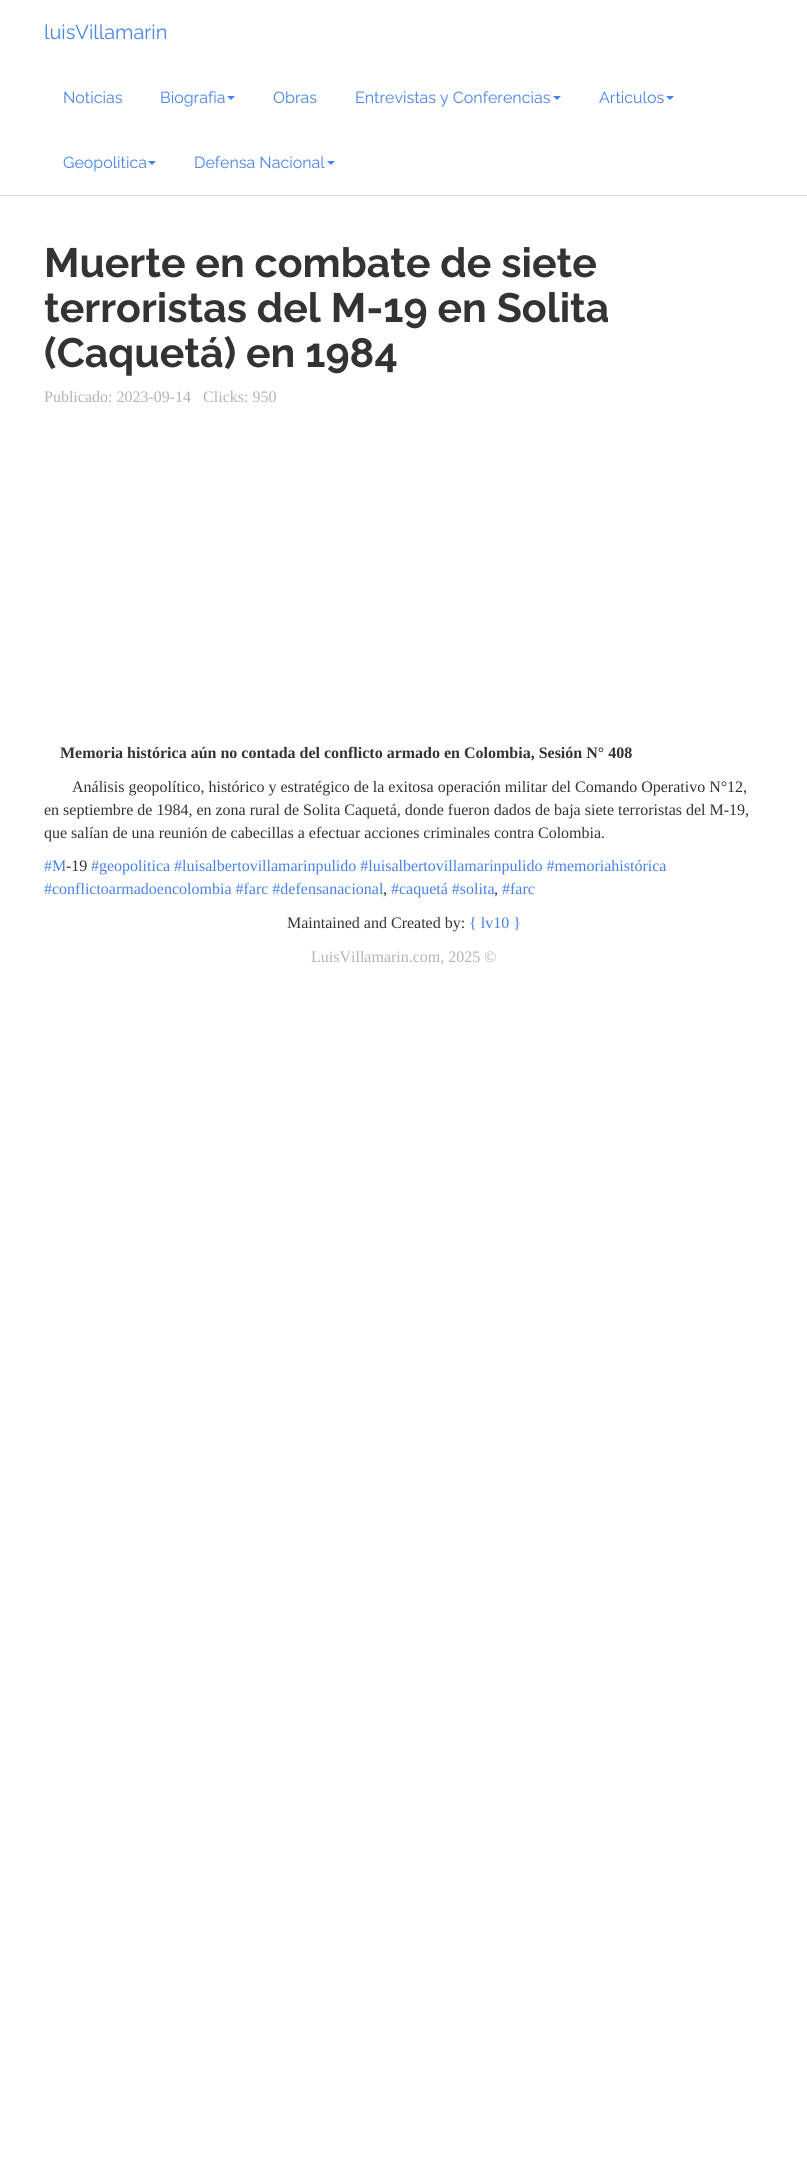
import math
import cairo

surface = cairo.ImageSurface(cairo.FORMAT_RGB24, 807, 2165)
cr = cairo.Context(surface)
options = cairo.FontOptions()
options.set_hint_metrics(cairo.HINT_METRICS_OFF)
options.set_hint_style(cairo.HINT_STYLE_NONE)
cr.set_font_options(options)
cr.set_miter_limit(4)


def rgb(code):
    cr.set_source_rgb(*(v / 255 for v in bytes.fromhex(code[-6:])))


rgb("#ffffff")
cr.paint()
rgb("#dddddd")
cr.rectangle(0, 195, 807, 1)
cr.fill()
rgb("#4582ec")
cr.new_path()
cr.move_to(227, 96)
cr.line_to(235, 96)
cr.line_to(231, 100)
cr.close_path()
cr.fill()
cr.new_path()
cr.move_to(553, 96)
cr.line_to(561, 96)
cr.line_to(557, 100)
cr.close_path()
cr.fill()
cr.new_path()
cr.move_to(666, 96)
cr.line_to(674, 96)
cr.line_to(670, 100)
cr.close_path()
cr.fill()
cr.new_path()
cr.move_to(148, 161)
cr.line_to(156, 161)
cr.line_to(152, 165)
cr.close_path()
cr.fill()
cr.new_path()
cr.move_to(327, 161)
cr.line_to(335, 161)
cr.line_to(331, 165)
cr.close_path()
cr.fill()
cr.select_font_face("Raleway")
cr.set_font_size(20)
cr.move_to(44, 39)
cr.show_text("luisVillamarin")
cr.set_font_size(16)
for x, y, s in [
    (63, 103, "Noticias"),
    (160, 103, "Biografia"),
    (273, 103, "Obras"),
    (355, 103, "Entrevistas y Conferencias"),
    (599, 103, "Articulos"),
    (63, 168, "Geopolitica"),
    (194, 168, "Defensa Nacional"),
]:
    cr.move_to(x, y)
    cr.show_text(s)
cr.select_font_face("Raleway", cairo.FONT_SLANT_NORMAL, cairo.FONT_WEIGHT_BOLD)
cr.set_font_size(41)
rgb("#333333")
for x, y, s in [
    (44, 277, "Muerte en combate de siete"),
    (44, 322, "terroristas del M-19 en Solita"),
    (44, 367, "(Caquetá) en 1984"),
]:
    cr.move_to(x, y)
    cr.show_text(s)
cr.select_font_face("Liberation Serif")
cr.set_font_size(16)
rgb("#b3b3b3")
cr.move_to(44, 402)
cr.show_text("Publicado: 2023-09-14   Clicks: 950")
cr.select_font_face("Liberation Serif", cairo.FONT_SLANT_NORMAL, cairo.FONT_WEIGHT_BOLD)
rgb("#333333")
cr.move_to(60, 758)
cr.show_text("Memoria histórica aún no contada del conflicto armado en Colombia, Sesión N° 408")
cr.select_font_face("Liberation Serif")
for x, y, s in [
    (72, 792, "Análisis geopolítico, histórico y estratégico de la exitosa operación militar del Comando Operativo N°12,"),
    (44, 815, "en septiembre de 1984, en zona rural de Solita Caquetá, donde fueron dados de baja siete terroristas del M-19,"),
    (44, 838, "que salían de una reunión de cabecillas a efectuar acciones criminales contra Colombia."),
]:
    cr.move_to(x, y)
    cr.show_text(s)
rgb("#4582ec")
cr.move_to(44, 871)
cr.show_text("#M")
rgb("#333333")
cr.move_to(66, 871)
cr.show_text("-19")
rgb("#4582ec")
cr.move_to(91, 871)
cr.show_text("#geopolitica #luisalbertovillamarinpulido #luisalbertovillamarinpulido #memoriahistórica")
cr.move_to(44, 894)
cr.show_text("#conflictoarmadoencolombia #farc #defensanacional")
rgb("#333333")
cr.move_to(383, 894)
cr.show_text(",")
rgb("#4582ec")
cr.move_to(391, 894)
cr.show_text("#caquetá #solita")
rgb("#333333")
cr.move_to(494, 894)
cr.show_text(",")
rgb("#4582ec")
cr.move_to(502, 894)
cr.show_text("#farc")
rgb("#333333")
cr.move_to(287, 928)
cr.show_text("Maintained and Created by:")
rgb("#4582ec")
cr.move_to(469, 928)
cr.show_text("{ lv10 }")
rgb("#b3b3b3")
cr.move_to(311, 962)
cr.show_text("LuisVillamarin.com, 2025 ©")
surface.write_to_png("page.png")
